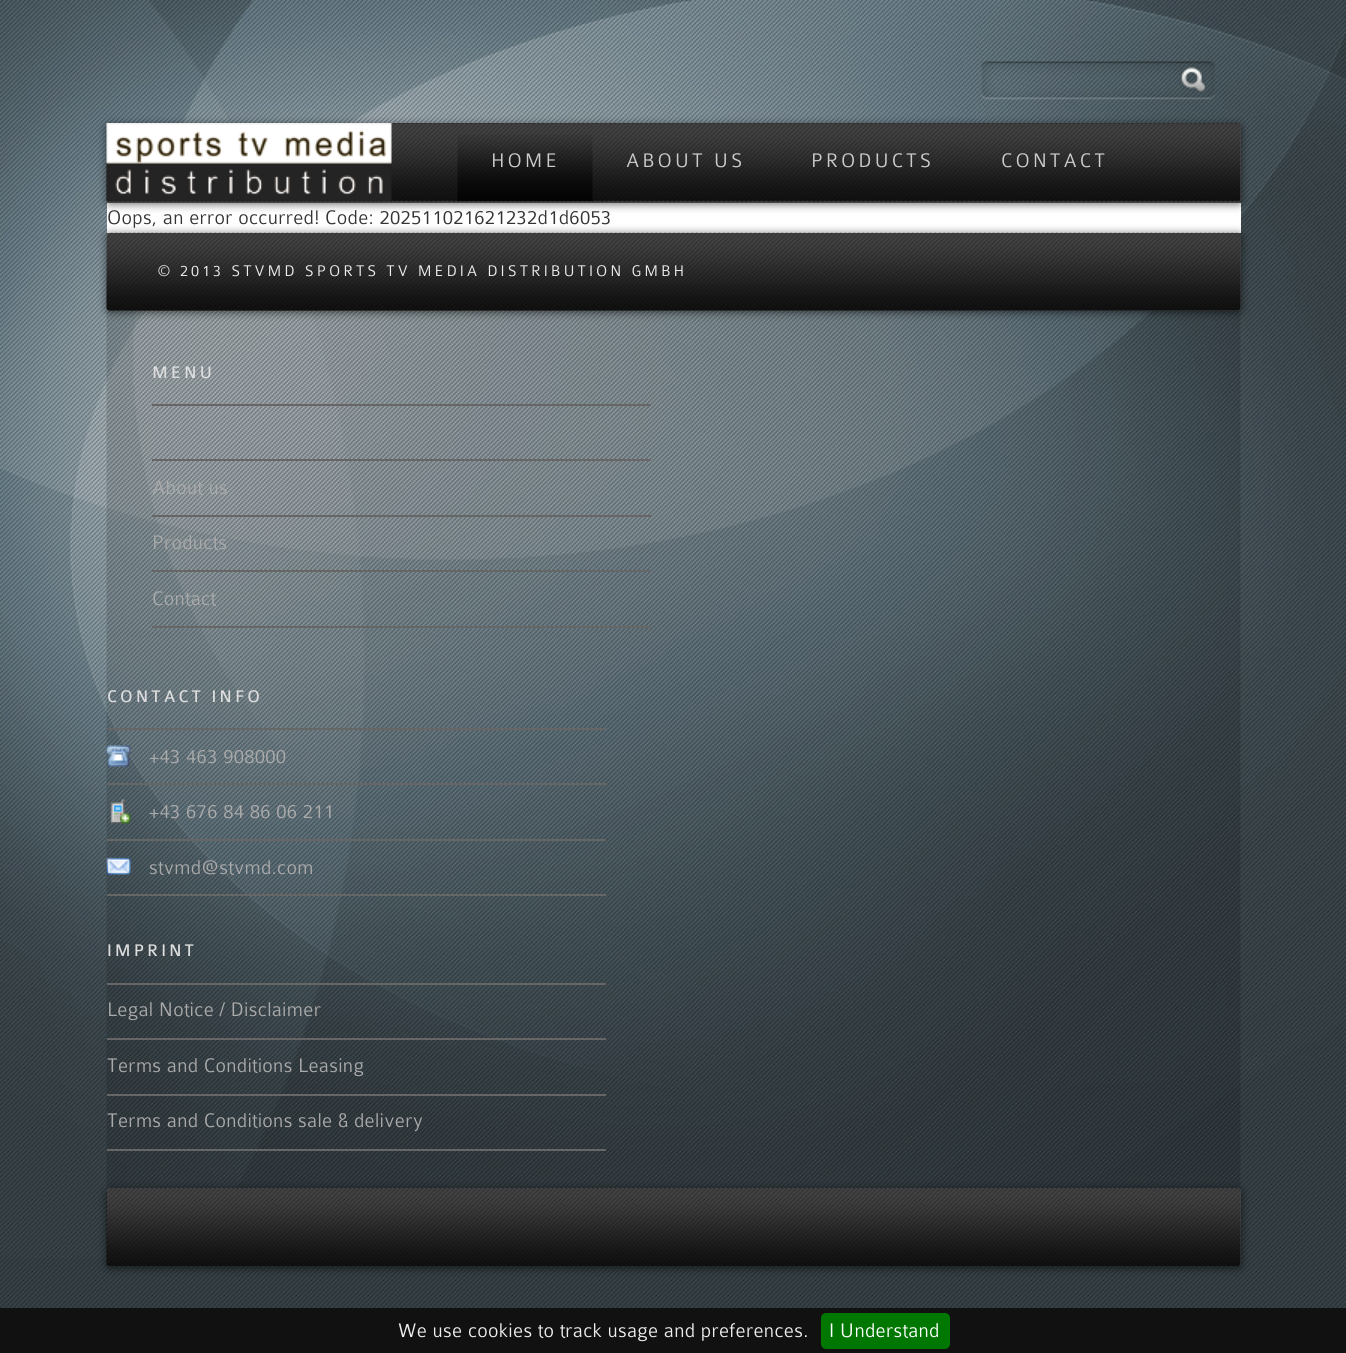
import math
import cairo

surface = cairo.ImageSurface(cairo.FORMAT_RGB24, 1346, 1353)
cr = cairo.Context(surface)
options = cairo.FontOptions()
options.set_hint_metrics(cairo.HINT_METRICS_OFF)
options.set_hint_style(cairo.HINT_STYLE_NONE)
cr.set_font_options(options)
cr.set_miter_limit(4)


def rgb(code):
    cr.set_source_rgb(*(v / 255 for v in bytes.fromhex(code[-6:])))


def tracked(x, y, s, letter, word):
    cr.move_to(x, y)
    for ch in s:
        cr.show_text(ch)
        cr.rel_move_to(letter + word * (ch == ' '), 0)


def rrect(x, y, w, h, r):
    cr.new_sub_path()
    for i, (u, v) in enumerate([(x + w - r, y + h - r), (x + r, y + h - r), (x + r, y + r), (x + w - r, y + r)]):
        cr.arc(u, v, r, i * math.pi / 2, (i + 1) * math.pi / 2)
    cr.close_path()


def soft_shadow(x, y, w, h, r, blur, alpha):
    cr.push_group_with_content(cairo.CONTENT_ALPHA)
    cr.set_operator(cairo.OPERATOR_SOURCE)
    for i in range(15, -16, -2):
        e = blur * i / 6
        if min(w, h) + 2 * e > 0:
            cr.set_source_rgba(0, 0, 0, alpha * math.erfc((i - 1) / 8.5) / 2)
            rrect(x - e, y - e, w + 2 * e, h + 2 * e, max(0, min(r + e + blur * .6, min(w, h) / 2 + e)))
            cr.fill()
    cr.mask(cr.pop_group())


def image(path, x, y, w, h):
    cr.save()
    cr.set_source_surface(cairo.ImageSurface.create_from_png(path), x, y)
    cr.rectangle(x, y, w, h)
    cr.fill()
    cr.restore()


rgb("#39444a")
cr.paint()
image("img/1.png", 0, 0, 1346, 1258)
image("img/2.png", 0, 0, 1346, 1308)
image("img/3.png", 981, 61, 234, 39)
image("img/4.png", 1179, 66, 27, 27)
rgb("#ffffff")
cr.rectangle(107, 203, 1134, 30)
cr.fill()
rgb("#000000")
soft_shadow(107, 125, 1134, 79, 3, 4.5, 0.6)
rgb("#444444")
rrect(107, 123, 1134, 80, 3)
cr.fill()
image("img/5.png", 106, 123, 1135, 79)
image("img/6.png", 106, 123, 286, 78)
image("img/7.png", 457, 135, 136, 66)
image("img/9.png", 106, 310, 1135, 878)
rgb("#000000")
soft_shadow(107, 234, 1134, 78, 3, 4.5, 0.6)
rgb("#444444")
rrect(107, 233, 1134, 78, 3)
cr.fill()
image("img/8.png", 106, 232, 1135, 79)
for x, y, w, h, color in [
    (152, 626, 499, 2, "#666666"),
    (152, 404, 499, 2, "#666666"),
    (152, 459, 499, 2, "#666666"),
    (152, 515, 499, 2, "#666666"),
    (152, 570, 499, 2, "#666666"),
    (107, 894, 499, 2, "#666666"),
]:
    rgb(color)
    cr.rectangle(x, y, w, h)
    cr.fill()
image("img/10.png", 106, 745, 25, 22)
cr.rectangle(107, 728, 499, 2)
cr.fill()
image("img/11.png", 110, 799, 21, 25)
cr.rectangle(107, 783, 499, 2)
cr.fill()
image("img/12.png", 106, 857, 25, 18)
for x, y, w, h, color in [
    (107, 839, 499, 2, "#666666"),
    (107, 1149, 499, 2, "#666666"),
    (107, 983, 499, 2, "#666666"),
    (107, 1038, 499, 2, "#666666"),
    (107, 1094, 499, 2, "#666666"),
]:
    rgb(color)
    cr.rectangle(x, y, w, h)
    cr.fill()
rgb("#000000")
soft_shadow(107, 1190, 1134, 78, 3, 4.5, 0.6)
rgb("#444444")
rrect(107, 1188, 1134, 78, 3)
cr.fill()
image("img/13.png", 106, 1188, 1135, 78)
rgb("#111111")
cr.rectangle(0, 1308, 1346, 45)
cr.fill()
rgb("#007700")
rrect(821, 1313, 129, 36, 5)
cr.fill()
cr.select_font_face("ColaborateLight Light")
cr.set_font_size(21)
rgb("#cccccc")
for x, y, s in [
    (491, 167, "HOME"),
    (626, 167, "ABOUT US"),
    (811, 167, "PRODUCTS"),
    (1001, 167, "CONTACT"),
]:
    tracked(x, y, s, 3, 0)
rgb("#333333")
tracked(107, 224, "Oops, an error occurred! Code: 202511021621232d1d6053", 0.3, 0)
cr.set_font_size(16.5)
rgb("#eeeeee")
tracked(158, 276, "© 2013 STVMD SPORTS TV MEDIA DISTRIBUTION GMBH", 3, 0)
cr.select_font_face("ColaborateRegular")
cr.set_font_size(18)
rgb("#dddddd")
tracked(152, 378, "MENU", 3, 0)
cr.select_font_face("ColaborateLight Light")
cr.set_font_size(21)
rgb("#aaaaaa")
for x, y, s in [
    (152, 494, "About us"),
    (152, 549, "Products"),
    (152, 605, "Contact"),
]:
    tracked(x, y, s, 0.3, 0)
cr.select_font_face("ColaborateRegular")
cr.set_font_size(18)
rgb("#dddddd")
tracked(107, 702, "CONTACT INFO", 3, 0)
cr.select_font_face("ColaborateLight Light")
cr.set_font_size(21)
rgb("#aaaaaa")
for x, y, s in [
    (149, 763, "+43 463 908000"),
    (149, 818, "+43 676 84 86 06 211"),
    (149, 874, "stvmd@stvmd.com"),
]:
    tracked(x, y, s, 0.3, 0)
cr.select_font_face("ColaborateRegular")
cr.set_font_size(18)
rgb("#dddddd")
tracked(107, 956, "IMPRINT", 3, 0)
cr.select_font_face("ColaborateLight Light")
cr.set_font_size(21)
rgb("#aaaaaa")
for x, y, s in [
    (107, 1016, "Legal Notice / Disclaimer"),
    (107, 1072, "Terms and Conditions Leasing"),
    (107, 1127, "Terms and Conditions sale & delivery"),
]:
    tracked(x, y, s, 0.3, 0)
rgb("#eeeeee")
tracked(398, 1337, "We use cookies to track usage and preferences.", 0.3, 0)
rgb("#ffffff")
tracked(829, 1337, "I Understand", 0.3, 0)
surface.write_to_png("page.png")
